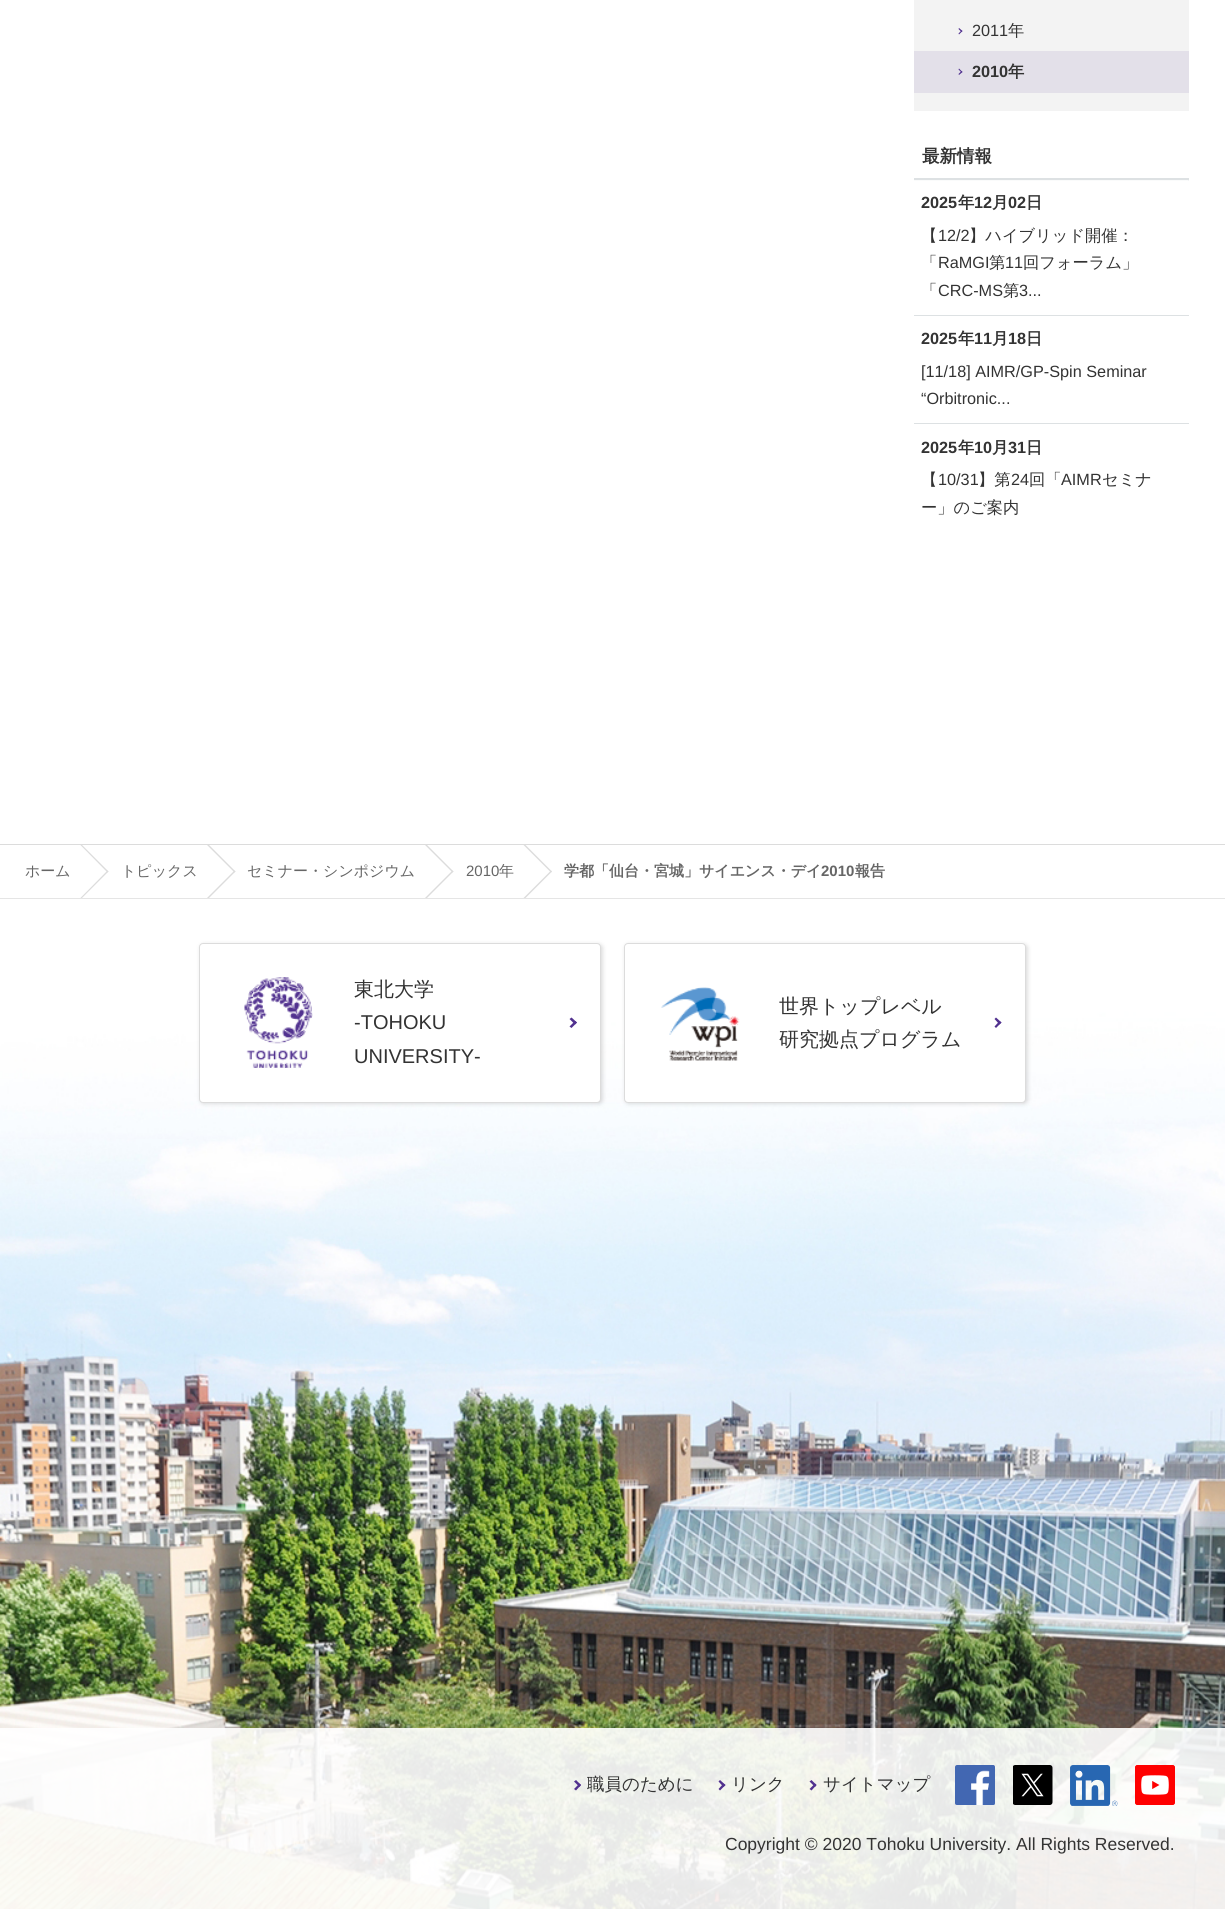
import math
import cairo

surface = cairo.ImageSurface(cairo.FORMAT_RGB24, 1225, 1909)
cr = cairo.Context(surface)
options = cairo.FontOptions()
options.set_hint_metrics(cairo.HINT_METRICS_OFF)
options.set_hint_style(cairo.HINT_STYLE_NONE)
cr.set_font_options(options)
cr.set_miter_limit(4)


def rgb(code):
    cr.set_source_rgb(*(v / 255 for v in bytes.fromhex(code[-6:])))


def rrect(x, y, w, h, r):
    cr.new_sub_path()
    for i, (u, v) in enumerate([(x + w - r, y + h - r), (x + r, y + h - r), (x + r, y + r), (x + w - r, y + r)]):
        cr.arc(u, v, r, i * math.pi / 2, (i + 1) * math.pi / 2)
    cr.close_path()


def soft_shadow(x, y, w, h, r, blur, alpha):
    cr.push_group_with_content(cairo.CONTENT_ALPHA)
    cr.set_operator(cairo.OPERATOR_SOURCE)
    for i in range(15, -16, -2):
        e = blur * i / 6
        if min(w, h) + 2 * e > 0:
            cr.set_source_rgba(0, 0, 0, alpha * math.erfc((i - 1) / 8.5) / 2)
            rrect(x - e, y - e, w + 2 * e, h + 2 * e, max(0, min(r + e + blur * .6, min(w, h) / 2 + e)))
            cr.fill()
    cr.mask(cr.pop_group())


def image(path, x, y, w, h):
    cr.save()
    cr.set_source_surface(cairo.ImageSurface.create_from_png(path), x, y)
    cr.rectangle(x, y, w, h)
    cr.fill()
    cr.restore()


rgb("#ffffff")
cr.paint()
rgb("#f3f3f3")
cr.rectangle(914, 0, 275, 111)
cr.fill()
rgb("#51318f")
cr.new_path()
cr.move_to(959, 28)
cr.line_to(962.5, 31)
cr.line_to(961.5, 32)
cr.line_to(958.5, 29)
cr.close_path()
cr.fill()
cr.new_path()
cr.move_to(961.5, 30.5)
cr.line_to(962.5, 31)
cr.line_to(959, 34.5)
cr.line_to(958.5, 33.5)
cr.close_path()
cr.fill()
rgb("#e3e0e9")
cr.rectangle(914, 51, 275, 42)
cr.fill()
rgb("#51318f")
cr.new_path()
cr.move_to(959, 68.5)
cr.line_to(962.5, 72)
cr.line_to(961.5, 72.5)
cr.line_to(958.5, 69.5)
cr.close_path()
cr.fill()
cr.new_path()
cr.move_to(961.5, 71)
cr.line_to(962.5, 72)
cr.line_to(959, 75)
cr.line_to(958.5, 74)
cr.close_path()
cr.fill()
rgb("#dde1e3")
cr.rectangle(914, 178, 275, 3)
cr.fill()
image("img/1.png", 914, 180, 275, 1)
for x, y, w, h, color in [
    (914, 315, 275, 1, "#dde1e3"),
    (914, 423, 275, 1, "#dde1e3"),
    (0, 844, 1225, 1, "#dcdcdc"),
    (0, 898, 1225, 1, "#dcdcdc"),
]:
    rgb(color)
    cr.rectangle(x, y, w, h)
    cr.fill()
cr.save()
cr.rectangle(0, 845, 1225, 53)
cr.clip()
cr.new_path()
cr.move_to(73, 836)
cr.line_to(108.5, 871.5)
cr.line_to(107.5, 872.5)
cr.line_to(72.5, 837)
cr.close_path()
cr.fill()
cr.new_path()
cr.move_to(107.5, 870.5)
cr.line_to(108.5, 871.5)
cr.line_to(73, 907)
cr.line_to(72.5, 906)
cr.close_path()
cr.fill()
cr.new_path()
cr.move_to(200, 836)
cr.line_to(235.5, 871.5)
cr.line_to(234.5, 872.5)
cr.line_to(199, 837)
cr.close_path()
cr.fill()
cr.new_path()
cr.move_to(234.5, 870.5)
cr.line_to(235.5, 871.5)
cr.line_to(200, 907)
cr.line_to(199, 906)
cr.close_path()
cr.fill()
cr.new_path()
cr.move_to(418, 836)
cr.line_to(453.5, 871.5)
cr.line_to(452.5, 872.5)
cr.line_to(417, 837)
cr.close_path()
cr.fill()
cr.new_path()
cr.move_to(452.5, 870.5)
cr.line_to(453.5, 871.5)
cr.line_to(418, 907)
cr.line_to(417, 906)
cr.close_path()
cr.fill()
cr.new_path()
cr.move_to(516.5, 836)
cr.line_to(552, 871.5)
cr.line_to(551, 872.5)
cr.line_to(515.5, 837)
cr.close_path()
cr.fill()
cr.new_path()
cr.move_to(551, 870.5)
cr.line_to(552, 871.5)
cr.line_to(516.5, 907)
cr.line_to(515.5, 906)
cr.close_path()
cr.fill()
cr.restore()
image("img/2.png", 0, 898, 1225, 1011)
rgb("#575757")
soft_shadow(200, 944, 403, 160, 4, 2, 0.2)
rgb("#ffffff")
rrect(199.5, 943.5, 401, 159, 3.5)
cr.fill_preserve()
rgb("#dcdcdc")
cr.set_line_width(1)
cr.stroke()
image("img/3.png", 244, 977, 69, 91)
rgb("#51318f")
cr.new_path()
cr.move_to(571.5, 1017.5)
cr.line_to(577, 1022.5)
cr.line_to(575, 1024.5)
cr.line_to(569.5, 1019)
cr.close_path()
cr.fill()
cr.new_path()
cr.move_to(575, 1021)
cr.line_to(577, 1022.5)
cr.line_to(571.5, 1028)
cr.line_to(569.5, 1026.5)
cr.close_path()
cr.fill()
rgb("#575757")
soft_shadow(625, 944, 403, 160, 4, 2, 0.2)
rgb("#ffffff")
rrect(624.5, 943.5, 401, 159, 3.5)
cr.fill_preserve()
rgb("#dcdcdc")
cr.stroke()
image("img/4.png", 661, 987, 79, 74)
rgb("#51318f")
cr.new_path()
cr.move_to(996, 1017.5)
cr.line_to(1001.5, 1022.5)
cr.line_to(999.5, 1024.5)
cr.line_to(994.5, 1019)
cr.close_path()
cr.fill()
cr.new_path()
cr.move_to(999.5, 1021)
cr.line_to(1001.5, 1022.5)
cr.line_to(996, 1028)
cr.line_to(994.5, 1026.5)
cr.close_path()
cr.fill()
cr.set_source_rgba(1, 1, 1, 0.9)
cr.rectangle(0, 1728, 1225, 181)
cr.fill()
rgb("#51318f")
cr.new_path()
cr.move_to(576, 1780)
cr.line_to(581, 1785)
cr.line_to(579.5, 1787)
cr.line_to(574, 1781.5)
cr.close_path()
cr.fill()
cr.new_path()
cr.move_to(579.5, 1783.5)
cr.line_to(581, 1785)
cr.line_to(576, 1790.5)
cr.line_to(574, 1789)
cr.close_path()
cr.fill()
cr.new_path()
cr.move_to(720, 1780)
cr.line_to(725.5, 1785)
cr.line_to(723.5, 1787)
cr.line_to(718.5, 1781.5)
cr.close_path()
cr.fill()
cr.new_path()
cr.move_to(723.5, 1783.5)
cr.line_to(725.5, 1785)
cr.line_to(720, 1790.5)
cr.line_to(718.5, 1789)
cr.close_path()
cr.fill()
cr.new_path()
cr.move_to(811.5, 1780)
cr.line_to(816.5, 1785)
cr.line_to(815, 1787)
cr.line_to(809.5, 1781.5)
cr.close_path()
cr.fill()
cr.new_path()
cr.move_to(815, 1783.5)
cr.line_to(816.5, 1785)
cr.line_to(811.5, 1790.5)
cr.line_to(809.5, 1789)
cr.close_path()
cr.fill()
image("img/5.png", 955, 1765, 40, 40)
image("img/6.png", 1013, 1765, 40, 40)
image("img/7.png", 1070, 1765, 48, 41)
image("img/8.png", 1135, 1765, 40, 40)
cr.select_font_face("Liberation Sans")
cr.set_font_size(16.25)
rgb("#333333")
cr.move_to(972, 36)
cr.show_text("2011")
cr.select_font_face("WenQuanYi Zen Hei Medium")
cr.move_to(1008, 36)
cr.show_text("年")
cr.select_font_face("Liberation Sans", cairo.FONT_SLANT_NORMAL, cairo.FONT_WEIGHT_BOLD)
cr.move_to(972, 77)
cr.show_text("2010")
cr.select_font_face("WenQuanYi Zen Hei", cairo.FONT_SLANT_NORMAL, cairo.FONT_WEIGHT_BOLD)
cr.move_to(1008, 77)
cr.show_text("年")
cr.set_font_size(17.5)
cr.move_to(922, 162)
cr.show_text("最新情報")
cr.select_font_face("Liberation Sans", cairo.FONT_SLANT_NORMAL, cairo.FONT_WEIGHT_BOLD)
cr.set_font_size(16.25)
cr.move_to(921, 208)
cr.show_text("2025")
cr.select_font_face("WenQuanYi Zen Hei", cairo.FONT_SLANT_NORMAL, cairo.FONT_WEIGHT_BOLD)
cr.move_to(958, 208)
cr.show_text("年")
cr.select_font_face("Liberation Sans", cairo.FONT_SLANT_NORMAL, cairo.FONT_WEIGHT_BOLD)
cr.move_to(974, 208)
cr.show_text("12")
cr.select_font_face("WenQuanYi Zen Hei", cairo.FONT_SLANT_NORMAL, cairo.FONT_WEIGHT_BOLD)
cr.move_to(992, 208)
cr.show_text("月")
cr.select_font_face("Liberation Sans", cairo.FONT_SLANT_NORMAL, cairo.FONT_WEIGHT_BOLD)
cr.move_to(1008, 208)
cr.show_text("02")
cr.select_font_face("WenQuanYi Zen Hei", cairo.FONT_SLANT_NORMAL, cairo.FONT_WEIGHT_BOLD)
cr.move_to(1026, 208)
cr.show_text("日")
cr.select_font_face("WenQuanYi Zen Hei Medium")
cr.move_to(921, 241)
cr.show_text("【")
cr.select_font_face("Liberation Sans")
cr.move_to(938, 241)
cr.show_text("12/2")
cr.select_font_face("WenQuanYi Zen Hei Medium")
cr.move_to(969, 241)
cr.show_text("】ハイブリッド開催：")
cr.move_to(921, 268)
cr.show_text("「")
cr.select_font_face("Liberation Sans")
cr.move_to(938, 268)
cr.show_text("RaMGI")
cr.select_font_face("WenQuanYi Zen Hei Medium")
cr.move_to(989, 268)
cr.show_text("第")
cr.select_font_face("Liberation Sans")
cr.move_to(1005, 268)
cr.show_text("11")
cr.select_font_face("WenQuanYi Zen Hei Medium")
cr.move_to(1023, 268)
cr.show_text("回フォーラム」")
cr.move_to(921, 296)
cr.show_text("「")
cr.select_font_face("Liberation Sans")
cr.move_to(938, 296)
cr.show_text("CRC-MS")
cr.select_font_face("WenQuanYi Zen Hei Medium")
cr.move_to(1003, 296)
cr.show_text("第")
cr.select_font_face("Liberation Sans")
cr.move_to(1019, 296)
cr.show_text("3...")
cr.select_font_face("Liberation Sans", cairo.FONT_SLANT_NORMAL, cairo.FONT_WEIGHT_BOLD)
cr.move_to(921, 344)
cr.show_text("2025")
cr.select_font_face("WenQuanYi Zen Hei", cairo.FONT_SLANT_NORMAL, cairo.FONT_WEIGHT_BOLD)
cr.move_to(958, 344)
cr.show_text("年")
cr.select_font_face("Liberation Sans", cairo.FONT_SLANT_NORMAL, cairo.FONT_WEIGHT_BOLD)
cr.move_to(974, 344)
cr.show_text("11")
cr.select_font_face("WenQuanYi Zen Hei", cairo.FONT_SLANT_NORMAL, cairo.FONT_WEIGHT_BOLD)
cr.move_to(992, 344)
cr.show_text("月")
cr.select_font_face("Liberation Sans", cairo.FONT_SLANT_NORMAL, cairo.FONT_WEIGHT_BOLD)
cr.move_to(1008, 344)
cr.show_text("18")
cr.select_font_face("WenQuanYi Zen Hei", cairo.FONT_SLANT_NORMAL, cairo.FONT_WEIGHT_BOLD)
cr.move_to(1026, 344)
cr.show_text("日")
cr.select_font_face("Liberation Sans")
cr.move_to(921, 377)
cr.show_text("[11/18] AIMR/GP-Spin Seminar")
cr.move_to(921, 404)
cr.show_text("“Orbitronic...")
cr.select_font_face("Liberation Sans", cairo.FONT_SLANT_NORMAL, cairo.FONT_WEIGHT_BOLD)
cr.move_to(921, 453)
cr.show_text("2025")
cr.select_font_face("WenQuanYi Zen Hei", cairo.FONT_SLANT_NORMAL, cairo.FONT_WEIGHT_BOLD)
cr.move_to(958, 453)
cr.show_text("年")
cr.select_font_face("Liberation Sans", cairo.FONT_SLANT_NORMAL, cairo.FONT_WEIGHT_BOLD)
cr.move_to(974, 453)
cr.show_text("10")
cr.select_font_face("WenQuanYi Zen Hei", cairo.FONT_SLANT_NORMAL, cairo.FONT_WEIGHT_BOLD)
cr.move_to(992, 453)
cr.show_text("月")
cr.select_font_face("Liberation Sans", cairo.FONT_SLANT_NORMAL, cairo.FONT_WEIGHT_BOLD)
cr.move_to(1008, 453)
cr.show_text("31")
cr.select_font_face("WenQuanYi Zen Hei", cairo.FONT_SLANT_NORMAL, cairo.FONT_WEIGHT_BOLD)
cr.move_to(1026, 453)
cr.show_text("日")
cr.select_font_face("WenQuanYi Zen Hei Medium")
cr.move_to(921, 485)
cr.show_text("【")
cr.select_font_face("Liberation Sans")
cr.move_to(938, 485)
cr.show_text("10/31")
cr.select_font_face("WenQuanYi Zen Hei Medium")
cr.move_to(978, 485)
cr.show_text("】第")
cr.select_font_face("Liberation Sans")
cr.move_to(1011, 485)
cr.show_text("24")
cr.select_font_face("WenQuanYi Zen Hei Medium")
cr.move_to(1029, 485)
cr.show_text("回「")
cr.select_font_face("Liberation Sans")
cr.move_to(1061, 485)
cr.show_text("AIMR")
cr.select_font_face("WenQuanYi Zen Hei Medium")
cr.move_to(1102, 485)
cr.show_text("セミナ")
cr.move_to(921, 513)
cr.show_text("ー」のご案内")
cr.set_font_size(15)
rgb("#666666")
for x, y, s in [
    (25, 876, "ホーム"),
    (121, 876, "トピックス"),
    (247, 876, "セミナー・シンポジウム"),
]:
    cr.move_to(x, y)
    cr.show_text(s)
cr.select_font_face("Liberation Sans")
cr.move_to(466, 876)
cr.show_text("2010")
cr.select_font_face("WenQuanYi Zen Hei Medium")
cr.move_to(499, 876)
cr.show_text("年")
cr.select_font_face("WenQuanYi Zen Hei", cairo.FONT_SLANT_NORMAL, cairo.FONT_WEIGHT_BOLD)
cr.move_to(564, 876)
cr.show_text("学都「仙台・宮城」サイエンス・デイ")
cr.select_font_face("Liberation Sans", cairo.FONT_SLANT_NORMAL, cairo.FONT_WEIGHT_BOLD)
cr.move_to(821, 876)
cr.show_text("2010")
cr.select_font_face("WenQuanYi Zen Hei", cairo.FONT_SLANT_NORMAL, cairo.FONT_WEIGHT_BOLD)
cr.move_to(855, 876)
cr.show_text("報告")
cr.select_font_face("WenQuanYi Zen Hei Medium")
cr.set_font_size(20)
rgb("#333333")
cr.move_to(354, 996)
cr.show_text("東北大学")
cr.select_font_face("Liberation Sans")
cr.move_to(354, 1029)
cr.show_text("-TOHOKU")
cr.move_to(354, 1063)
cr.show_text("UNIVERSITY-")
cr.select_font_face("WenQuanYi Zen Hei Medium")
cr.move_to(779, 1013)
cr.show_text("世界トップレベル")
cr.move_to(779, 1046)
cr.show_text("研究拠点プログラム")
cr.set_font_size(17.5)
for x, y, s in [
    (587, 1790, "職員のために"),
    (731, 1790, "リンク"),
    (823, 1790, "サイトマップ"),
]:
    cr.move_to(x, y)
    cr.show_text(s)
cr.select_font_face("Liberation Sans")
cr.move_to(725, 1850)
cr.show_text("Copyright © 2020 Tohoku University. All Rights Reserved.")
surface.write_to_png("page.png")
